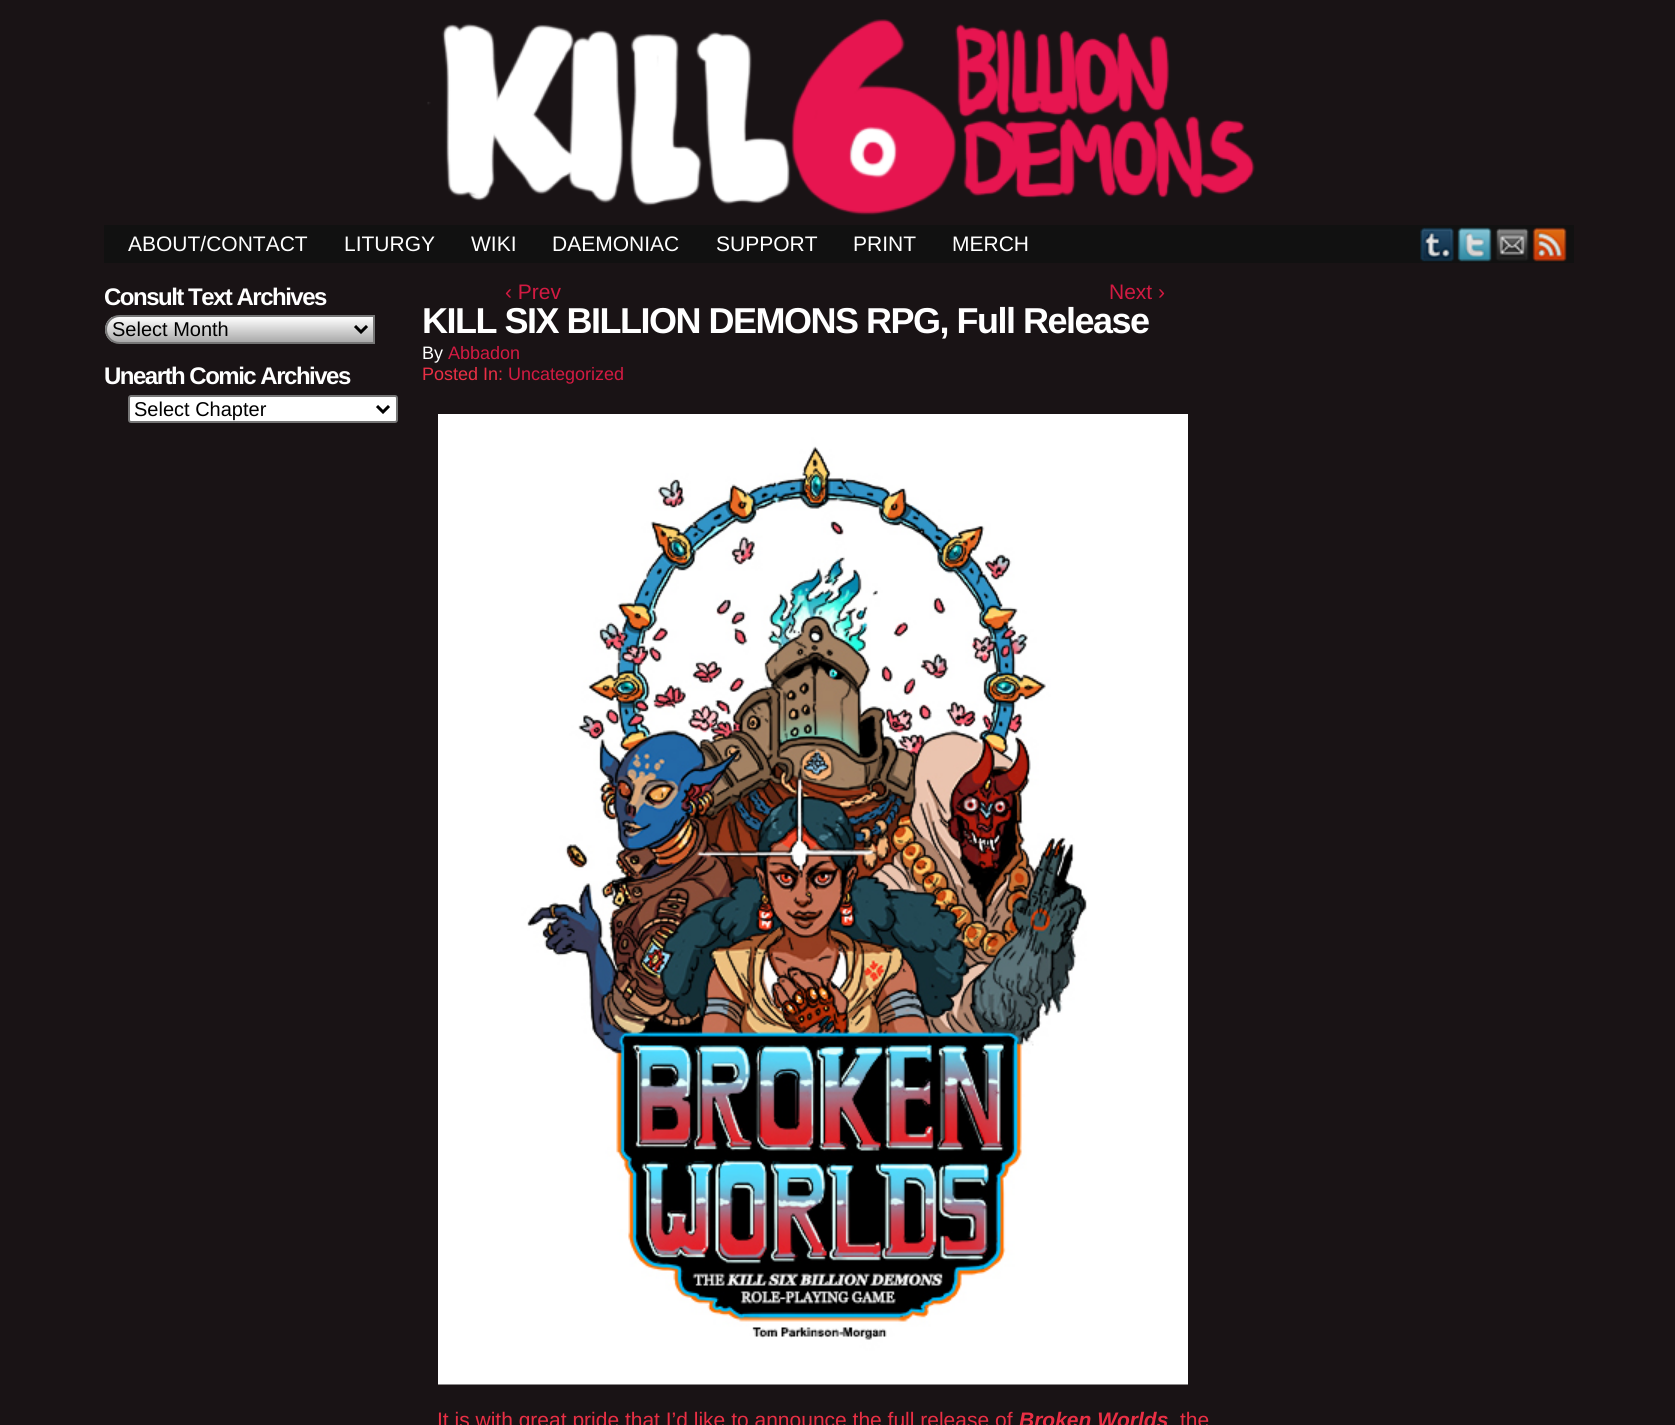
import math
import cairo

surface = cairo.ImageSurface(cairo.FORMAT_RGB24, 1675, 1425)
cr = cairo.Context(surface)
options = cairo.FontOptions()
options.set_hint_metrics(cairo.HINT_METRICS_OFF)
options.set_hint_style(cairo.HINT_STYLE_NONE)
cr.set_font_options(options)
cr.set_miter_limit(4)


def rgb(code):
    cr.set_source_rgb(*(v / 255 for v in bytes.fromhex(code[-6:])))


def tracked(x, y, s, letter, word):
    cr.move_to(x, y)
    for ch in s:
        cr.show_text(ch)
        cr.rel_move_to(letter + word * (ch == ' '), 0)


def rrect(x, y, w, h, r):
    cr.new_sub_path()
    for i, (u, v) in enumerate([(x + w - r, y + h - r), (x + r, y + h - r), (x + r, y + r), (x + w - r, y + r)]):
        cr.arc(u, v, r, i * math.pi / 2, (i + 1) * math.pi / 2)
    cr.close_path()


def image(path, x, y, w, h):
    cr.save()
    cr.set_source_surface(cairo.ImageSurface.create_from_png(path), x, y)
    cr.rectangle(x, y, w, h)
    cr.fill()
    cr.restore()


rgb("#191315")
cr.paint()
image("img/1.png", 427, 19, 828, 196)
rgb("#111111")
cr.rectangle(104, 225, 1470, 38)
cr.fill()
image("img/2.png", 1420, 227, 34, 35)
image("img/3.png", 1457, 227, 35, 35)
image("img/4.png", 1495, 228, 34, 33)
image("img/5.png", 1532, 227, 35, 35)
cr.save()
cr.new_path()
cr.move_to(119.5, 315)
cr.line_to(375, 315)
cr.line_to(375, 344)
cr.line_to(119.5, 344)
cr.curve_to(111.5, 344, 105, 337.5, 105, 329.5)
cr.curve_to(105, 321.5, 111.5, 315, 119.5, 315)
cr.close_path()
cr.clip()
gradient = cairo.LinearGradient(107, 317, 107, 342)
gradient.add_color_stop_rgba(0, 1, 1, 1, 1)
gradient.add_color_stop_rgba(1, 0.667, 0.667, 0.667, 1)
cr.set_source(gradient)
cr.rectangle(105, 317, 268, 25)
cr.fill()
cr.restore()
cr.new_path()
cr.move_to(119.5, 316)
cr.line_to(374, 316)
cr.line_to(374, 343)
cr.line_to(119.5, 343)
cr.curve_to(112, 343, 106, 337, 106, 329.5)
cr.curve_to(106, 322, 112, 316, 119.5, 316)
cr.close_path()
rgb("#767676")
cr.stroke()
cr.new_path()
cr.move_to(355, 326)
cr.line_to(361, 332)
cr.line_to(367, 326)
rgb("#000000")
cr.set_line_width(3)
cr.stroke()
rgb("#ffffff")
rrect(129, 396, 268, 26, 2)
cr.fill_preserve()
rgb("#767676")
cr.set_line_width(2)
cr.stroke()
cr.new_path()
cr.move_to(377, 406)
cr.line_to(383, 412)
cr.line_to(389, 406)
rgb("#000000")
cr.set_line_width(3)
cr.stroke()
image("img/6.png", 438, 414, 750, 971)
cr.select_font_face("Liberation Sans")
cr.set_font_size(21)
rgb("#ffffff")
for x, y, s in [
    (128, 251, "ABOUT/CONTACT"),
    (344, 251, "LITURGY"),
    (471, 251, "WIKI"),
    (552, 251, "DAEMONIAC"),
    (716, 251, "SUPPORT"),
    (853, 251, "PRINT"),
    (952, 251, "MERCH"),
]:
    cr.move_to(x, y)
    cr.show_text(s)
cr.select_font_face("Liberation Sans", cairo.FONT_SLANT_NORMAL, cairo.FONT_WEIGHT_BOLD)
cr.set_font_size(24)
tracked(104, 305, "Consult Text Archives", -1.5, 0)
cr.select_font_face("Liberation Sans")
cr.set_font_size(20)
rgb("#000000")
cr.move_to(112, 336)
cr.show_text("Select Month")
cr.select_font_face("Liberation Sans", cairo.FONT_SLANT_NORMAL, cairo.FONT_WEIGHT_BOLD)
cr.set_font_size(24)
rgb("#ffffff")
tracked(104, 384, "Unearth Comic Archives", -1.5, 0)
cr.select_font_face("Liberation Sans")
cr.set_font_size(20)
rgb("#000000")
cr.move_to(134, 416)
cr.show_text("Select Chapter")
cr.set_font_size(21)
rgb("#d31a42")
cr.move_to(505, 299)
cr.show_text("‹ Prev")
cr.move_to(1109, 299)
cr.show_text("Next ›")
cr.select_font_face("Liberation Sans", cairo.FONT_SLANT_NORMAL, cairo.FONT_WEIGHT_BOLD)
cr.set_font_size(36)
rgb("#ffffff")
tracked(422, 333, "KILL SIX BILLION DEMONS RPG, Full Release", -1.5, 0)
cr.select_font_face("Liberation Sans")
cr.set_font_size(18)
cr.move_to(422, 359)
cr.show_text("By")
rgb("#d31a42")
cr.move_to(448, 359)
cr.show_text("Abbadon")
rgb("#ea2f45")
cr.move_to(422, 380)
cr.show_text("Posted In:")
rgb("#d31a42")
cr.move_to(508, 380)
cr.show_text("Uncategorized")
cr.set_font_size(21)
rgb("#ea2f45")
cr.move_to(437, 1427)
cr.show_text("It is with great pride that I’d like to announce the full release of")
cr.select_font_face("Liberation Sans", cairo.FONT_SLANT_ITALIC, cairo.FONT_WEIGHT_BOLD)
cr.move_to(1019, 1427)
cr.show_text("Broken Worlds")
cr.select_font_face("Liberation Sans")
cr.move_to(1180, 1427)
cr.show_text("the")
surface.write_to_png("page.png")
